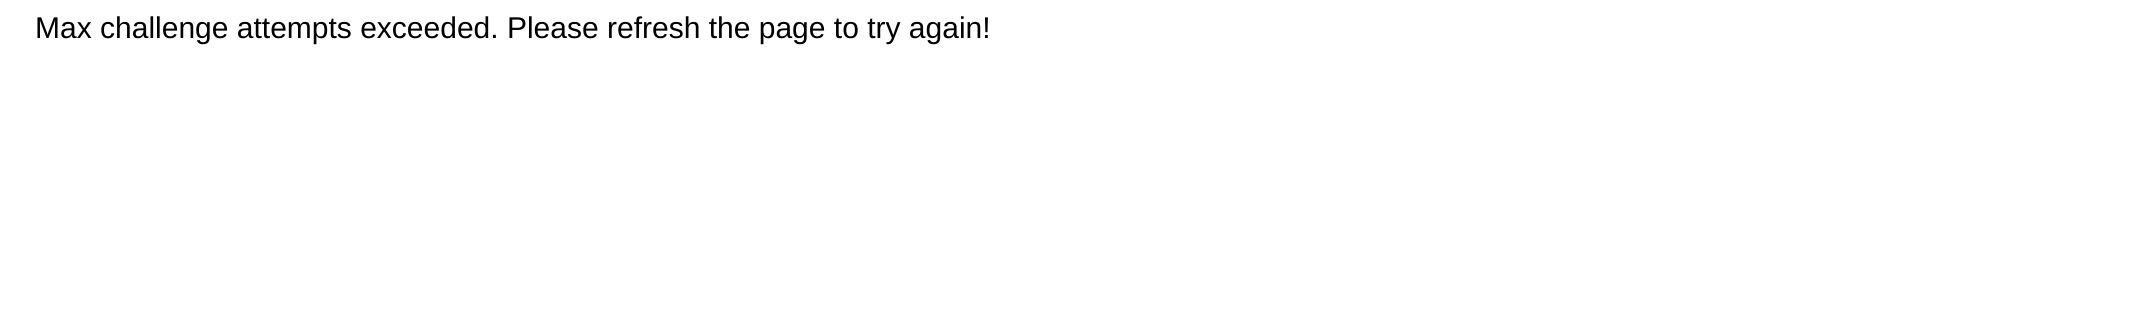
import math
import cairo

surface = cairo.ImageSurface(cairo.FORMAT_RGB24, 2145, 334)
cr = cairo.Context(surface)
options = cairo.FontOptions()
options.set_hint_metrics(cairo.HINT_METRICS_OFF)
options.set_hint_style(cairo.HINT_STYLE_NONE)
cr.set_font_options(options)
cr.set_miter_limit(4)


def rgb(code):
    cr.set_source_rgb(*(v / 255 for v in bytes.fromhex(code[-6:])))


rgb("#ffffff")
cr.paint()
cr.select_font_face("Liberation Sans")
cr.set_font_size(30)
rgb("#000000")
cr.move_to(35, 38)
cr.show_text("Max challenge attempts exceeded. Please refresh the page to try again!")
surface.write_to_png("page.png")
